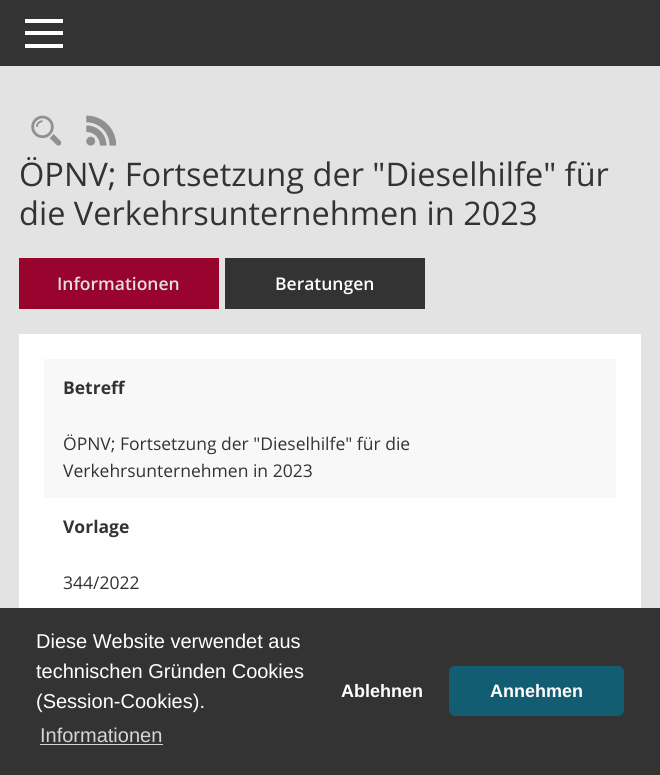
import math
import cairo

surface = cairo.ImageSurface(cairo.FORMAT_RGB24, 660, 775)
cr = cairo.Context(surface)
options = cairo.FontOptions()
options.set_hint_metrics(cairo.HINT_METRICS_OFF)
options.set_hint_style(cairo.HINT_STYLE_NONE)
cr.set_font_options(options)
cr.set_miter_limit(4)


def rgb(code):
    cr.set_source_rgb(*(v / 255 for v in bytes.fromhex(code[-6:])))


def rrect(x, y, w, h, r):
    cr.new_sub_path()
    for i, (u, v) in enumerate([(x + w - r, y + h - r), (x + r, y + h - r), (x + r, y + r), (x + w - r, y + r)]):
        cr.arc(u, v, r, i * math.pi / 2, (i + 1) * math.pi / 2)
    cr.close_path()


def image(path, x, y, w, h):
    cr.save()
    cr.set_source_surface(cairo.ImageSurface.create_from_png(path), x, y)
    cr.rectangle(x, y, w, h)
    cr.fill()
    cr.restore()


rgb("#e3e3e3")
cr.paint()
for x, y, w, h, color in [
    (0, 0, 660, 66, "#333333"),
    (25, 19, 38, 4, "#ffffff"),
    (25, 31, 38, 4, "#ffffff"),
    (25, 44, 38, 4, "#ffffff"),
]:
    rgb(color)
    cr.rectangle(x, y, w, h)
    cr.fill()
image("img/1.png", 31, 115, 31, 31)
image("img/2.png", 86, 115, 31, 31)
for x, y, w, h, color in [
    (219, 308, 422, 1, "#dee2e6"),
    (19, 258, 200, 51, "#99042e"),
    (225, 258, 200, 51, "#333333"),
    (19, 334, 622, 274, "#ffffff"),
    (44, 359, 572, 139, "#f8f8f8"),
    (0, 608, 660, 167, "#333333"),
    (40, 744, 123, 1, "#d6d6d6"),
]:
    rgb(color)
    cr.rectangle(x, y, w, h)
    cr.fill()
rgb("#135d72")
rrect(449, 666, 175, 50, 6)
cr.fill()
cr.select_font_face("Open Sans")
cr.set_font_size(32.5)
rgb("#333333")
cr.move_to(19, 186)
cr.show_text("ÖPNV; Fortsetzung der \"Dieselhilfe\" für")
cr.move_to(19, 225)
cr.show_text("die Verkehrsunternehmen in 2023")
cr.select_font_face("Open Sans SemiBold")
cr.set_font_size(17.5)
rgb("#e1e1e1")
cr.move_to(57, 290)
cr.show_text("Informationen")
rgb("#ffffff")
cr.move_to(275, 290)
cr.show_text("Beratungen")
cr.select_font_face("Open Sans", cairo.FONT_SLANT_NORMAL, cairo.FONT_WEIGHT_BOLD)
rgb("#333333")
cr.move_to(63, 394)
cr.show_text("Betreff")
cr.select_font_face("Open Sans")
cr.move_to(63, 450)
cr.show_text("ÖPNV; Fortsetzung der \"Dieselhilfe\" für die")
cr.move_to(63, 477)
cr.show_text("Verkehrsunternehmen in 2023")
cr.select_font_face("Open Sans", cairo.FONT_SLANT_NORMAL, cairo.FONT_WEIGHT_BOLD)
cr.move_to(63, 533)
cr.show_text("Vorlage")
cr.select_font_face("Open Sans")
cr.move_to(63, 589)
cr.show_text("344/2022")
cr.select_font_face("Liberation Sans")
cr.set_font_size(20)
rgb("#ffffff")
for x, y, s in [
    (36, 648, "Diese Website verwendet aus"),
    (36, 678, "technischen Gründen Cookies"),
    (36, 708, "(Session-Cookies)."),
]:
    cr.move_to(x, y)
    cr.show_text(s)
rgb("#d6d6d6")
cr.move_to(40, 742)
cr.show_text("Informationen")
cr.select_font_face("Liberation Sans", cairo.FONT_SLANT_NORMAL, cairo.FONT_WEIGHT_BOLD)
cr.set_font_size(18)
rgb("#ffffff")
cr.move_to(341, 697)
cr.show_text("Ablehnen")
cr.move_to(490, 697)
cr.show_text("Annehmen")
surface.write_to_png("page.png")
